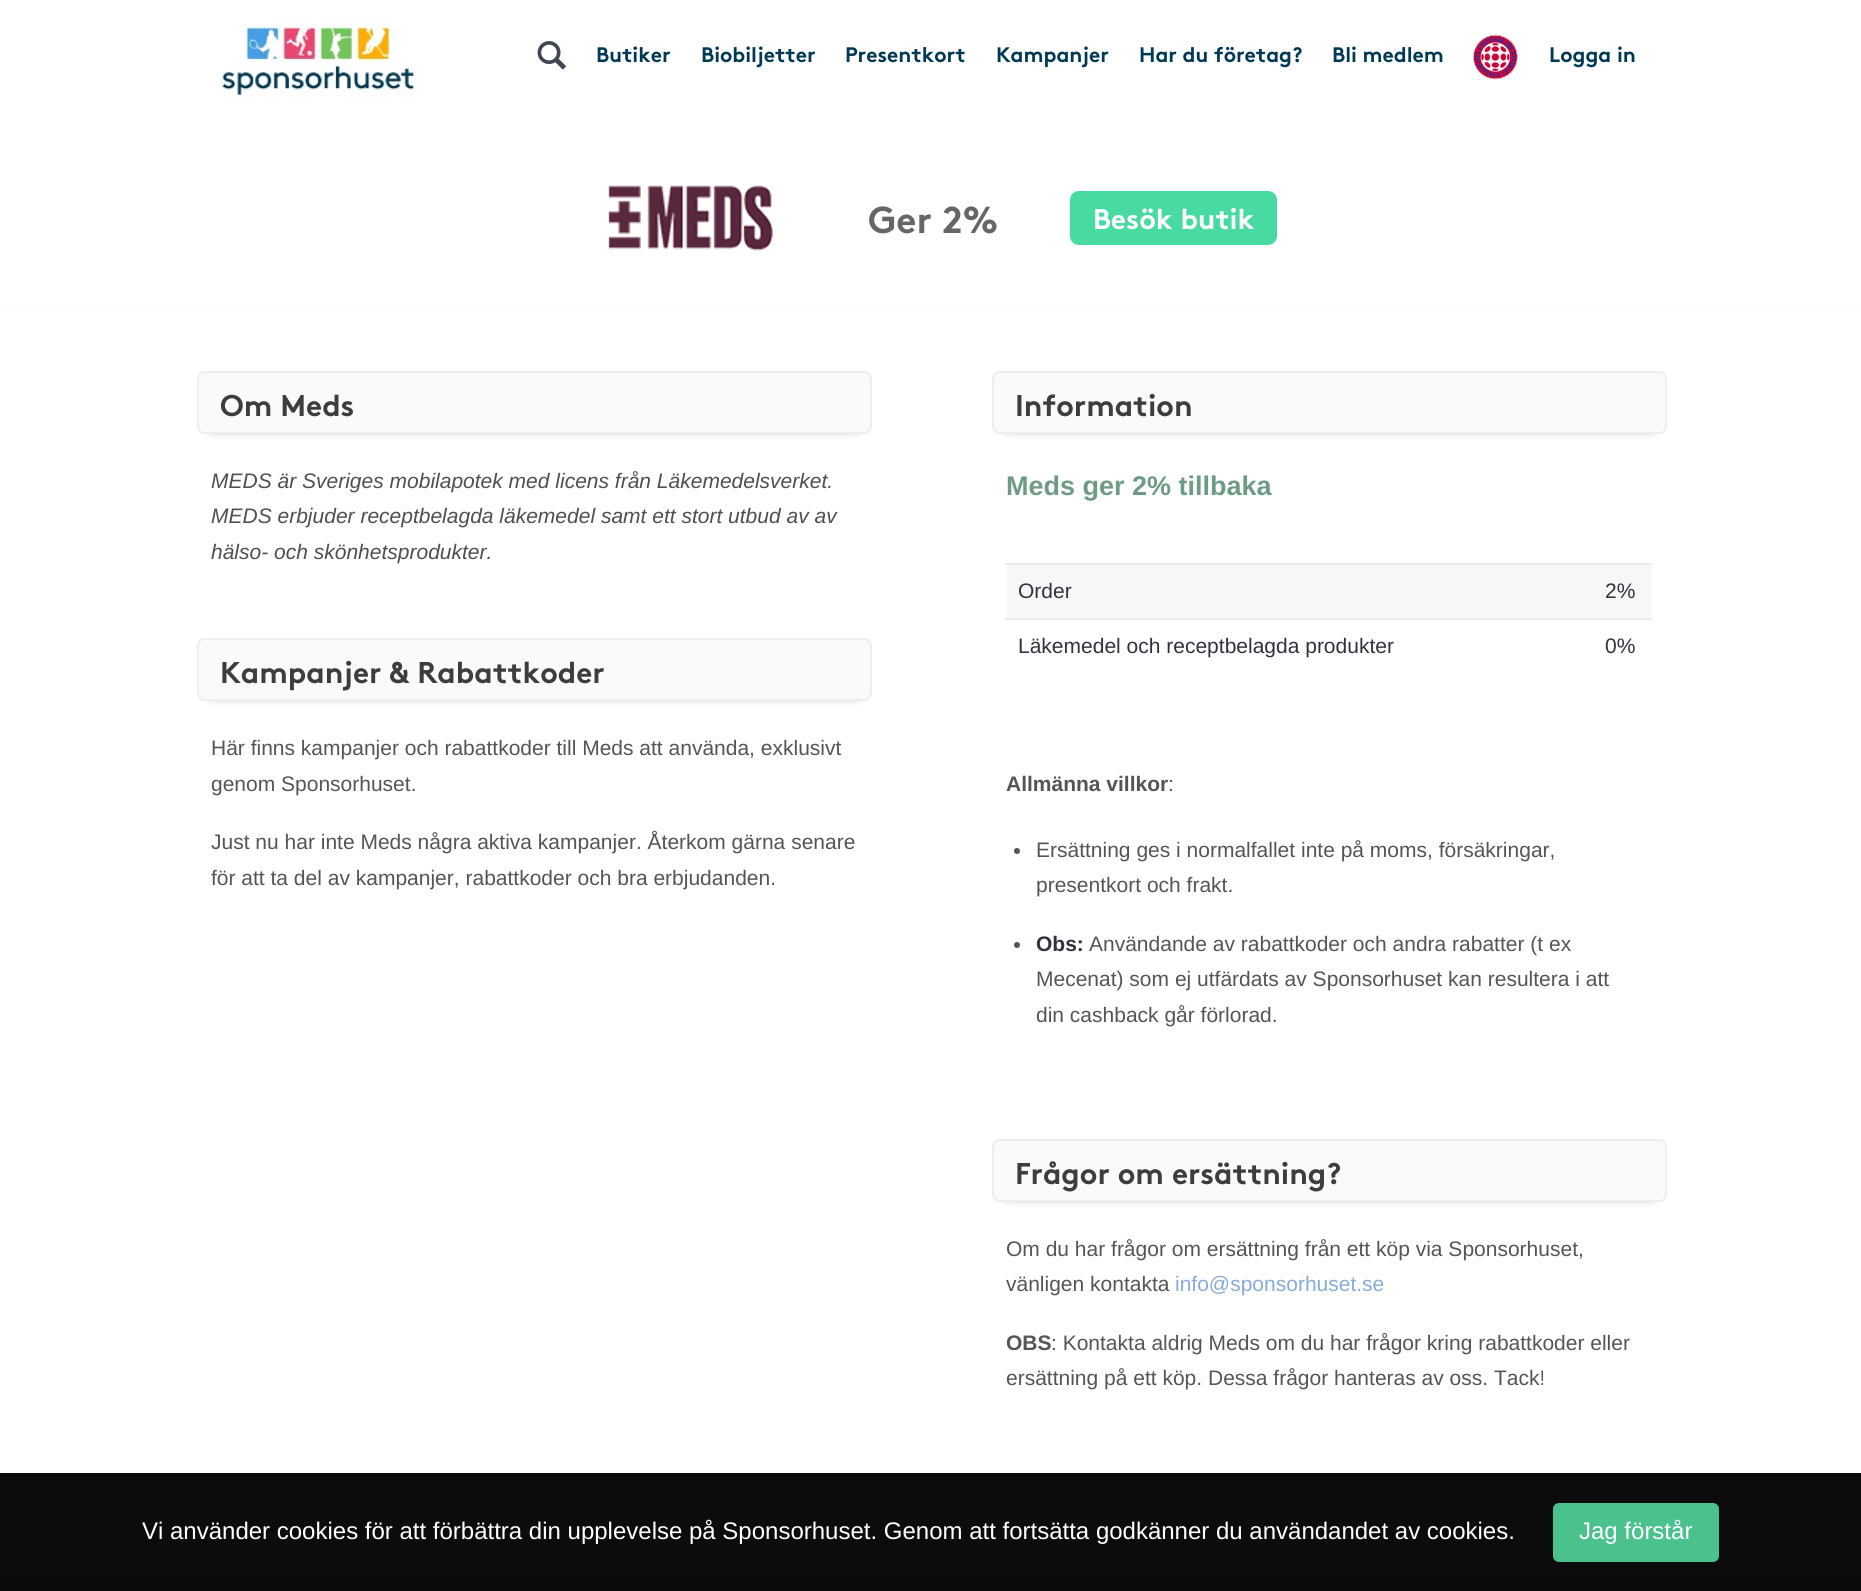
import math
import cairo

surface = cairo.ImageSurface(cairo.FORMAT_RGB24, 1861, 1591)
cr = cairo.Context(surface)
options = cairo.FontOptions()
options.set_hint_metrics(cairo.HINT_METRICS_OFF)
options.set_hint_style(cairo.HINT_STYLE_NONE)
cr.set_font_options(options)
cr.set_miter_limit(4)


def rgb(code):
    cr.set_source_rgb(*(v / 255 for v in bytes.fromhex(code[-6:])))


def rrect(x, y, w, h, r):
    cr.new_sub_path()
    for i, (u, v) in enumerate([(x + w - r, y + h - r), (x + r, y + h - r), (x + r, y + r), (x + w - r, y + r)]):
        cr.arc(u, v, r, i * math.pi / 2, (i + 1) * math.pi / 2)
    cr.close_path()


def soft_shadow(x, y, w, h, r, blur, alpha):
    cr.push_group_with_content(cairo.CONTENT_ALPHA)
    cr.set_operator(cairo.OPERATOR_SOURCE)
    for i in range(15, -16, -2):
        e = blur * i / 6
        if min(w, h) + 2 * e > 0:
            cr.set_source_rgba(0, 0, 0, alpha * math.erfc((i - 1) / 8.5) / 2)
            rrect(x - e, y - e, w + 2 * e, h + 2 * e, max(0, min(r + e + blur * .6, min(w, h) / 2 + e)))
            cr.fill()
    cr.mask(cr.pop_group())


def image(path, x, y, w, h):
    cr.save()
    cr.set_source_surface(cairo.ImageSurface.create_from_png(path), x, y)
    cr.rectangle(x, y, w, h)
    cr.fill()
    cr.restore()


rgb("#ffffff")
cr.paint()
image("img/1.png", 221, 15, 196, 90)
image("img/2.png", 537, 41, 29, 29)
image("img/3.png", 1473, 34, 45, 46)
image("img/4.png", 608, 185, 165, 66)
rgb("#47dba1")
rrect(1070, 191, 207, 54, 9)
cr.fill()
cr.save()
cr.set_fill_rule(cairo.FILL_RULE_EVEN_ODD)
cr.new_path()
cr.move_to(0, 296)
cr.line_to(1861, 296)
cr.line_to(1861, 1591)
cr.line_to(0, 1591)
cr.close_path()
cr.move_to(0, 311)
cr.line_to(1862, 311)
cr.line_to(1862, 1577)
cr.line_to(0, 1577)
cr.close_path()
cr.clip()
rgb("#e9e9e9")
soft_shadow(3, 320, 1856, 1260, 0, 7.5, 1)
cr.restore()
rgb("#333333")
soft_shadow(212, 393, 645, 33, 0, 6, 1)
rgb("#fafafa")
rrect(198, 372, 673, 61, 7)
cr.fill_preserve()
rgb("#eeeeee")
cr.stroke()
rgb("#333333")
soft_shadow(212, 660, 645, 33, 0, 6, 1)
rgb("#fafafa")
rrect(198, 639, 673, 61, 7)
cr.fill_preserve()
rgb("#eeeeee")
cr.stroke()
rgb("#333333")
soft_shadow(1007, 393, 645, 33, 0, 6, 1)
rgb("#fafafa")
rrect(993, 372, 673, 61, 7)
cr.fill_preserve()
rgb("#eeeeee")
cr.stroke()
for x, y, w, h, color in [
    (1007, 565, 645, 53, "#f7f7f7"),
    (1005, 563, 647, 2, "#ebebeb"),
    (1005, 618, 647, 2, "#ebebeb"),
]:
    rgb(color)
    cr.rectangle(x, y, w, h)
    cr.fill()
rgb("#555555")
cr.arc(1017, 851, 3, 0, 2 * math.pi)
cr.fill()
cr.arc(1017, 945, 3, 0, 2 * math.pi)
cr.fill()
rgb("#333333")
soft_shadow(1007, 1161, 645, 33, 0, 6, 1)
rgb("#fafafa")
rrect(993, 1140, 673, 61, 7)
cr.fill_preserve()
rgb("#eeeeee")
cr.stroke()
gradient = cairo.RadialGradient(0, 0, 0, 0, 0, 1)
gradient.set_matrix(cairo.Matrix(1 / 1316, 0, 0, 1 / 509, -1 * 931 / 1316, -1 * 1937 / 509))
gradient.add_color_stop_rgba(0, 1, 1, 1, 1)
gradient.add_color_stop_rgba(1, 0.933, 0.933, 0.933, 1)
cr.set_source(gradient)
cr.rectangle(0, 1577, 1861, 14)
cr.fill()
cr.set_source_rgba(0, 0, 0, 0.95)
cr.rectangle(0, 1473, 1861, 118)
cr.fill()
rgb("#4bc18d")
rrect(1553, 1503, 166, 59, 6)
cr.fill()
cr.select_font_face("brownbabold", cairo.FONT_SLANT_NORMAL, cairo.FONT_WEIGHT_BOLD)
cr.set_font_size(21)
rgb("#003953")
for x, y, s in [
    (596, 62, "Butiker"),
    (701, 62, "Biobiljetter"),
    (845, 62, "Presentkort"),
    (996, 62, "Kampanjer"),
    (1139, 62, "Har du företag?"),
    (1332, 62, "Bli medlem"),
    (1549, 62, "Logga in"),
]:
    cr.move_to(x, y)
    cr.show_text(s)
cr.set_font_size(37.5)
rgb("#666666")
cr.move_to(868, 233)
cr.show_text("Ger 2%")
cr.set_font_size(28.5)
rgb("#ffffff")
cr.move_to(1093, 229)
cr.show_text("Besök butik")
cr.set_font_size(30)
rgb("#3d3d3d")
cr.move_to(220, 416)
cr.show_text("Om Meds")
cr.select_font_face("Liberation Sans", cairo.FONT_SLANT_ITALIC)
cr.set_font_size(21)
rgb("#4f4f4f")
for x, y, s in [
    (211, 488, "MEDS är Sveriges mobilapotek med licens från Läkemedelsverket."),
    (211, 523, "MEDS erbjuder receptbelagda läkemedel samt ett stort utbud av av"),
    (211, 559, "hälso- och skönhetsprodukter."),
]:
    cr.move_to(x, y)
    cr.show_text(s)
cr.select_font_face("brownbabold", cairo.FONT_SLANT_NORMAL, cairo.FONT_WEIGHT_BOLD)
cr.set_font_size(30)
rgb("#3d3d3d")
cr.move_to(220, 683)
cr.show_text("Kampanjer & Rabattkoder")
cr.select_font_face("Liberation Sans")
cr.set_font_size(21)
rgb("#555555")
for x, y, s in [
    (211, 755, "Här finns kampanjer och rabattkoder till Meds att använda, exklusivt"),
    (211, 791, "genom Sponsorhuset."),
    (211, 849, "Just nu har inte Meds några aktiva kampanjer. Återkom gärna senare"),
    (211, 885, "för att ta del av kampanjer, rabattkoder och bra erbjudanden."),
]:
    cr.move_to(x, y)
    cr.show_text(s)
cr.select_font_face("brownbabold", cairo.FONT_SLANT_NORMAL, cairo.FONT_WEIGHT_BOLD)
cr.set_font_size(30)
rgb("#3d3d3d")
cr.move_to(1015, 416)
cr.show_text("Information")
cr.select_font_face("Liberation Sans", cairo.FONT_SLANT_NORMAL, cairo.FONT_WEIGHT_BOLD)
cr.set_font_size(27)
rgb("#6d9b85")
cr.move_to(1006, 495)
cr.show_text("Meds ger 2% tillbaka")
cr.select_font_face("Liberation Sans")
cr.set_font_size(21)
rgb("#2e333d")
for x, y, s in [
    (1018, 598, "Order"),
    (1605, 598, "2%"),
    (1018, 653, "Läkemedel och receptbelagda produkter"),
    (1605, 653, "0%"),
]:
    cr.move_to(x, y)
    cr.show_text(s)
cr.select_font_face("Liberation Sans", cairo.FONT_SLANT_NORMAL, cairo.FONT_WEIGHT_BOLD)
rgb("#555555")
cr.move_to(1006, 791)
cr.show_text("Allmänna villkor")
cr.select_font_face("Liberation Sans")
for x, y, s in [
    (1168, 791, ":"),
    (1036, 857, "Ersättning ges i normalfallet inte på moms, försäkringar,"),
    (1036, 892, "presentkort och frakt."),
]:
    cr.move_to(x, y)
    cr.show_text(s)
cr.select_font_face("Liberation Sans", cairo.FONT_SLANT_NORMAL, cairo.FONT_WEIGHT_BOLD)
rgb("#2e333d")
cr.move_to(1036, 951)
cr.show_text("Obs:")
cr.select_font_face("Liberation Sans")
rgb("#555555")
for x, y, s in [
    (1089, 951, "Användande av rabattkoder och andra rabatter (t ex"),
    (1036, 986, "Mecenat) som ej utfärdats av Sponsorhuset kan resultera i att"),
    (1036, 1022, "din cashback går förlorad."),
]:
    cr.move_to(x, y)
    cr.show_text(s)
cr.select_font_face("brownbabold", cairo.FONT_SLANT_NORMAL, cairo.FONT_WEIGHT_BOLD)
cr.set_font_size(30)
rgb("#3d3d3d")
cr.move_to(1015, 1184)
cr.show_text("Frågor om ersättning?")
cr.select_font_face("Liberation Sans")
cr.set_font_size(21)
rgb("#555555")
cr.move_to(1006, 1256)
cr.show_text("Om du har frågor om ersättning från ett köp via Sponsorhuset,")
cr.move_to(1006, 1291)
cr.show_text("vänligen kontakta")
rgb("#88acd8")
cr.move_to(1175, 1291)
cr.show_text("info@sponsorhuset.se")
cr.select_font_face("Liberation Sans", cairo.FONT_SLANT_NORMAL, cairo.FONT_WEIGHT_BOLD)
rgb("#555555")
cr.move_to(1006, 1350)
cr.show_text("OBS")
cr.select_font_face("Liberation Sans")
cr.move_to(1051, 1350)
cr.show_text(": Kontakta aldrig Meds om du har frågor kring rabattkoder eller")
cr.move_to(1006, 1385)
cr.show_text("ersättning på ett köp. Dessa frågor hanteras av oss. Tack!")
cr.set_font_size(24)
rgb("#ffffff")
cr.move_to(142, 1539)
cr.show_text("Vi använder cookies för att förbättra din upplevelse på Sponsorhuset. Genom att fortsätta godkänner du användandet av cookies.")
cr.move_to(1579, 1539)
cr.show_text("Jag förstår")
surface.write_to_png("page.png")
